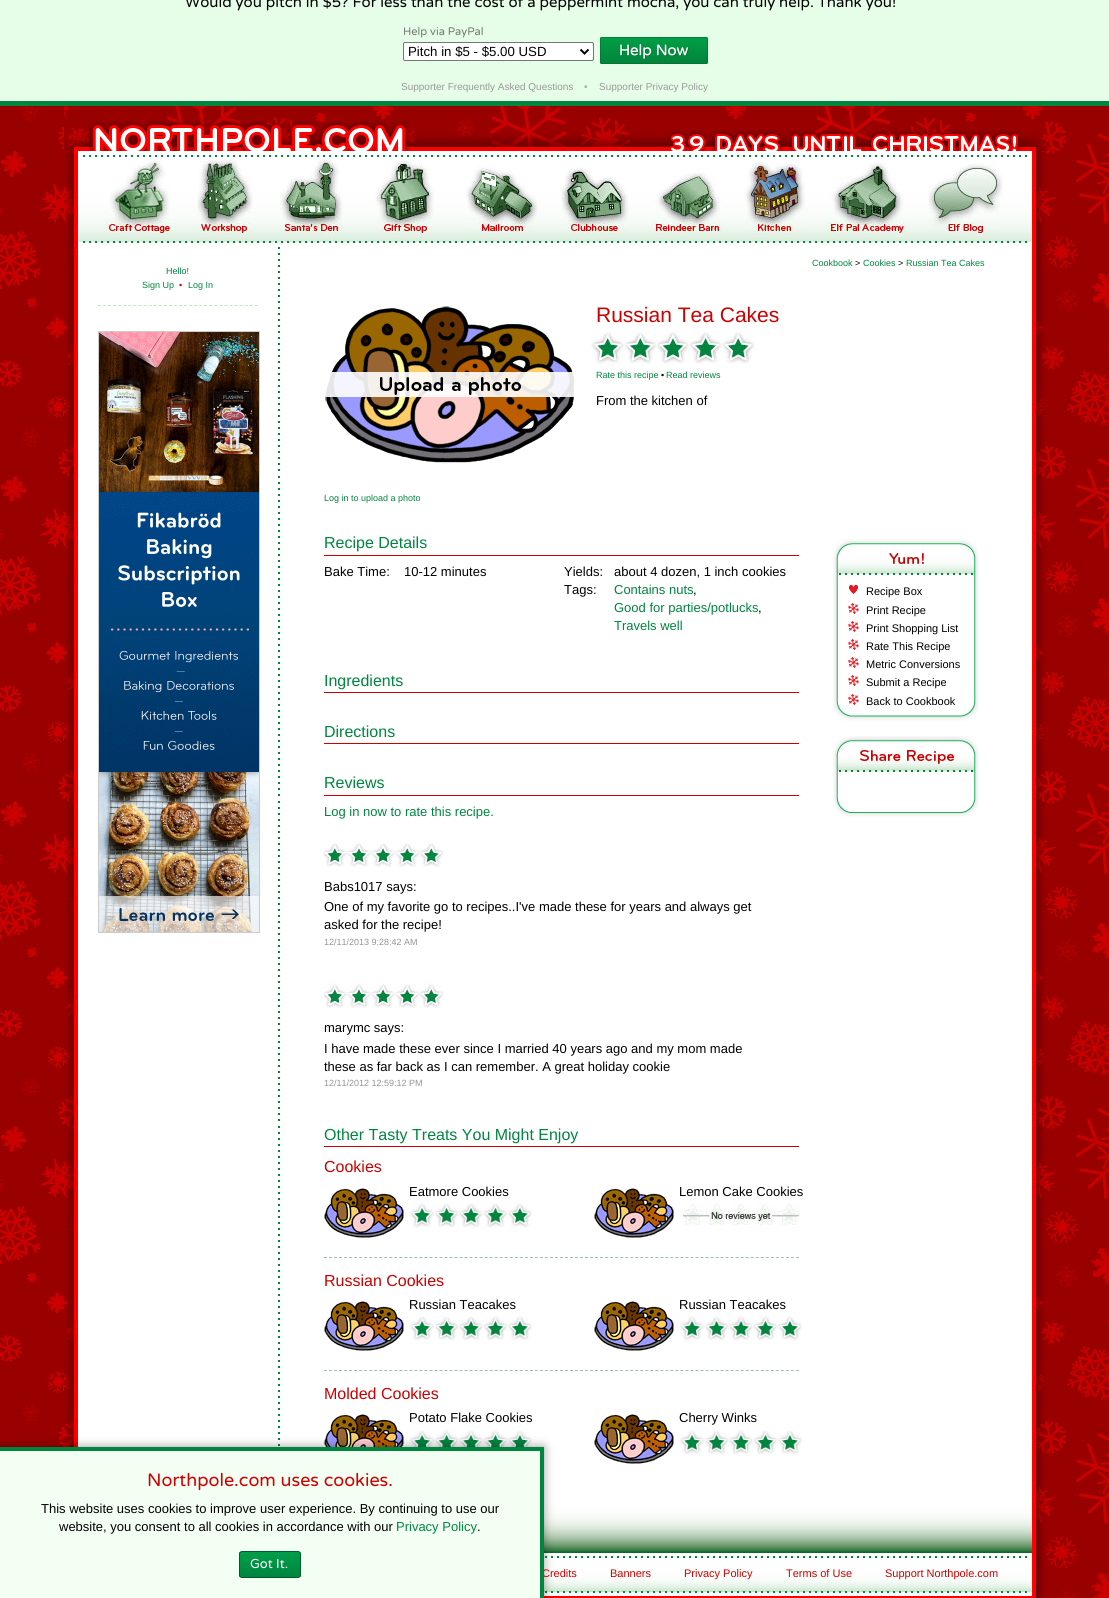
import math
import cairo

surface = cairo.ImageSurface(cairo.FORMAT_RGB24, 1109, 1598)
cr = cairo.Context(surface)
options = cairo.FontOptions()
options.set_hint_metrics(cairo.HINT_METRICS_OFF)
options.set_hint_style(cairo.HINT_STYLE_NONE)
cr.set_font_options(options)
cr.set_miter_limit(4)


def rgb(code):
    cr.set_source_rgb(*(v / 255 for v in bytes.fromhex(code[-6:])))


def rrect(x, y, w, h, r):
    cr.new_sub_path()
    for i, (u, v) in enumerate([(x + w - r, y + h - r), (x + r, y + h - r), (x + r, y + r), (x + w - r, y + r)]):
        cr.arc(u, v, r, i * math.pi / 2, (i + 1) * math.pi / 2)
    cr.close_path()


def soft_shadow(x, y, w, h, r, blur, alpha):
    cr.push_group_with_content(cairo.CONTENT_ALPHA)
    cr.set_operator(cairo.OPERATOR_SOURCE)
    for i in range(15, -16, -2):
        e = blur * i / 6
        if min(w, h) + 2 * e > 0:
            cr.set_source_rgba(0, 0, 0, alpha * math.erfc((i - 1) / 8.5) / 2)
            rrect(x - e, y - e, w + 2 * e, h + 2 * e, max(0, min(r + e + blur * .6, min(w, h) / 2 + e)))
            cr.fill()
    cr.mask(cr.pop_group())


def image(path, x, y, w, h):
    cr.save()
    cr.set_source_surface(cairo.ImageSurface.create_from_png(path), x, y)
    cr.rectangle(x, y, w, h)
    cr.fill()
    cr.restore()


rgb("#ffffff")
cr.paint()
image("img/1.png", 0, 106, 1109, 1492)
rgb("#e6fee7")
cr.rectangle(0, 0, 1109, 101)
cr.fill()
rgb("#00853f")
cr.rectangle(0, 101, 1109, 5)
cr.fill()
rgb("#ffffff")
rrect(403.5, 42.5, 190, 18, 1.5)
cr.fill_preserve()
rgb("#767676")
cr.set_line_width(1)
cr.stroke()
cr.new_path()
cr.move_to(580.5, 49.5)
cr.line_to(584.5, 53.5)
cr.line_to(588.5, 49.5)
rgb("#000000")
cr.set_line_width(2)
cr.stroke()
image("img/2.png", 600, 37, 108, 27)
image("img/3.png", 64, 106, 982, 45)
image("img/4.png", 669, 130, 18, 21)
image("img/5.png", 687, 130, 19, 21)
image("img/6.png", 710, 106, 74, 45)
image("img/7.png", 788, 130, 79, 21)
image("img/8.png", 65, 151, 980, 1402)
image("img/9.png", 544, 1493, 488, 60)
rgb("#ffffff")
cr.rectangle(278, 151, 2, 92)
cr.fill()
image("img/10.png", 78, 155, 954, 88)
image("img/11.png", 105, 157, 68, 76)
image("img/12.png", 197, 157, 56, 76)
image("img/13.png", 280, 157, 63, 76)
image("img/14.png", 375, 157, 59, 76)
image("img/15.png", 466, 165, 71, 68)
image("img/16.png", 561, 165, 67, 68)
image("img/17.png", 651, 173, 72, 60)
image("img/18.png", 744, 162, 61, 71)
image("img/19.png", 826, 163, 80, 70)
image("img/20.png", 928, 163, 75, 70)
cr.new_path()
cr.move_to(98, 305.5)
cr.line_to(258, 305.5)
rgb("#c1e6c1")
cr.set_line_width(1)
cr.set_dash([3, 2.06])
cr.stroke()
cr.rectangle(98.5, 331.5, 161, 601)
rgb("#cccccc")
cr.set_dash([])
cr.stroke()
image("img/21.png", 99, 332, 160, 600)
image("img/22.png", 325, 306, 250, 158)
image("img/23.png", 591, 331, 164, 33)
rgb("#cc0000")
cr.rectangle(324, 555, 475, 1)
cr.fill()
image("img/24.png", 833, 539, 146, 182)
image("img/25.png", 849, 585, 9, 9)
image("img/26.png", 848, 603, 11, 11)
image("img/26.png", 848, 621, 11, 11)
image("img/26.png", 848, 639, 11, 11)
image("img/26.png", 848, 657, 11, 11)
image("img/26.png", 848, 675, 11, 11)
image("img/26.png", 848, 694, 11, 11)
image("img/27.png", 833, 736, 146, 81)
for x, y, w, h, color in [
    (324, 692, 475, 1, "#cc0000"),
    (324, 743, 475, 1, "#cc0000"),
    (324, 795, 475, 1, "#cc0000"),
]:
    rgb(color)
    cr.rectangle(x, y, w, h)
    cr.fill()
image("img/28.png", 324, 841, 120, 26)
image("img/28.png", 324, 982, 120, 26)
cr.rectangle(324, 1146, 475, 1)
cr.fill()
image("img/29.png", 324, 1188, 80, 50)
image("img/30.png", 409, 1203, 123, 25)
image("img/29.png", 594, 1188, 80, 50)
image("img/31.png", 678, 1203, 122, 22)
cr.new_path()
cr.move_to(324, 1257.5)
cr.line_to(799, 1257.5)
rgb("#a2bcaf")
cr.set_dash([3, 2.02])
cr.stroke()
image("img/29.png", 324, 1301, 80, 50)
image("img/32.png", 409, 1316, 123, 25)
image("img/29.png", 594, 1301, 80, 50)
image("img/33.png", 679, 1316, 123, 25)
cr.new_path()
cr.move_to(324, 1370.5)
cr.line_to(799, 1370.5)
cr.stroke()
image("img/34.png", 324, 1414, 80, 33)
image("img/35.png", 409, 1430, 123, 17)
image("img/29.png", 594, 1414, 80, 50)
image("img/33.png", 679, 1430, 123, 25)
image("img/36.png", 544, 1553, 501, 45)
rgb("#000000")
soft_shadow(0, 1447, 544, 151, 0, 5, 0.4)
rgb("#f3fff3")
cr.rectangle(0, 1451, 540, 147)
cr.fill()
rgb("#00853f")
cr.rectangle(0, 1447, 544, 4)
cr.fill()
cr.save()
rrect(239, 1551, 62, 27, 3)
cr.clip()
gradient = cairo.LinearGradient(240, 1552, 240, 1577)
gradient.add_color_stop_rgba(0.05, 0, 0.616, 0.29, 1)
gradient.add_color_stop_rgba(1, 0, 0.522, 0.247, 1)
cr.set_source(gradient)
cr.rectangle(239, 1552, 62, 25)
cr.fill()
cr.restore()
rrect(239.5, 1551.5, 61, 26, 2.5)
rgb("#005a2b")
cr.set_dash([])
cr.stroke()
cr.select_font_face("Varela Round")
cr.set_font_size(15)
rgb("#000000")
cr.move_to(185, 7)
cr.show_text("Would you pitch in $5? For less than the cost of a peppermint mocha, you can truly help. Thank you!")
cr.set_font_size(11)
rgb("#777777")
cr.move_to(403, 35)
cr.show_text("Help via PayPal")
cr.select_font_face("Liberation Sans")
cr.set_font_size(13.25)
rgb("#000000")
cr.move_to(408, 56)
cr.show_text("Pitch in $5 - $5.00 USD")
cr.set_font_size(10)
rgb("#999999")
cr.move_to(401, 90)
cr.show_text("Supporter Frequently Asked Questions")
rgb("#aaaaaa")
cr.move_to(584, 90)
cr.show_text("•")
rgb("#999999")
cr.move_to(599, 90)
cr.show_text("Supporter Privacy Policy")
cr.set_font_size(9)
rgb("#00853f")
cr.move_to(166, 274)
cr.show_text("Hello!")
cr.move_to(142, 288)
cr.show_text("Sign Up")
rgb("#cc0000")
cr.move_to(179, 288)
cr.show_text("•")
rgb("#00853f")
cr.move_to(188, 288)
cr.show_text("Log In")
cr.move_to(812, 266)
cr.show_text("Cookbook")
rgb("#000000")
cr.move_to(855, 266)
cr.show_text(">")
rgb("#00853f")
cr.move_to(863, 266)
cr.show_text("Cookies")
rgb("#000000")
cr.move_to(898, 266)
cr.show_text(">")
rgb("#00853f")
cr.move_to(906, 266)
cr.show_text("Russian Tea Cakes")
cr.set_font_size(21)
rgb("#cc0000")
cr.move_to(596, 322)
cr.show_text("Russian Tea Cakes")
cr.set_font_size(9)
rgb("#00853f")
cr.move_to(596, 378)
cr.show_text("Rate this recipe")
rgb("#000000")
cr.move_to(661, 378)
cr.show_text("•")
rgb("#00853f")
cr.move_to(666, 378)
cr.show_text("Read reviews")
cr.set_font_size(13)
rgb("#000000")
cr.move_to(596, 405)
cr.show_text("From the kitchen of")
cr.set_font_size(9)
rgb("#00853f")
cr.move_to(324, 501)
cr.show_text("Log in to upload a photo")
cr.set_font_size(16)
cr.move_to(324, 548)
cr.show_text("Recipe Details")
cr.set_font_size(13)
rgb("#000000")
for x, y, s in [
    (324, 576, "Bake Time:"),
    (404, 576, "10-12 minutes"),
    (564, 576, "Yields:"),
    (564, 594, "Tags:"),
    (614, 576, "about 4 dozen, 1 inch cookies"),
]:
    cr.move_to(x, y)
    cr.show_text(s)
rgb("#00853f")
cr.move_to(614, 594)
cr.show_text("Contains nuts")
rgb("#000000")
cr.move_to(693, 594)
cr.show_text(",")
rgb("#00853f")
cr.move_to(614, 612)
cr.show_text("Good for parties/potlucks")
rgb("#000000")
cr.move_to(758, 612)
cr.show_text(",")
rgb("#00853f")
cr.move_to(614, 630)
cr.show_text("Travels well")
cr.set_font_size(11)
rgb("#000000")
for x, y, s in [
    (866, 595, "Recipe Box"),
    (866, 614, "Print Recipe"),
    (866, 632, "Print Shopping List"),
    (866, 650, "Rate This Recipe"),
    (866, 668, "Metric Conversions"),
    (866, 686, "Submit a Recipe"),
    (866, 705, "Back to Cookbook"),
]:
    cr.move_to(x, y)
    cr.show_text(s)
cr.set_font_size(16)
rgb("#00853f")
for x, y, s in [
    (324, 686, "Ingredients"),
    (324, 737, "Directions"),
    (324, 788, "Reviews"),
]:
    cr.move_to(x, y)
    cr.show_text(s)
cr.set_font_size(13)
cr.move_to(324, 816)
cr.show_text("Log in now to rate this recipe.")
rgb("#000000")
for x, y, s in [
    (324, 891, "Babs1017 says:"),
    (324, 911, "One of my favorite go to recipes..I've made these for years and always get"),
    (324, 929, "asked for the recipe!"),
]:
    cr.move_to(x, y)
    cr.show_text(s)
cr.set_font_size(9)
rgb("#939598")
cr.move_to(324, 945)
cr.show_text("12/11/2013 9:28:42 AM")
cr.set_font_size(13)
rgb("#000000")
for x, y, s in [
    (324, 1032, "marymc says:"),
    (324, 1053, "I have made these ever since I married 40 years ago and my mom made"),
    (324, 1071, "these as far back as I can remember. A great holiday cookie"),
]:
    cr.move_to(x, y)
    cr.show_text(s)
cr.set_font_size(9)
rgb("#939598")
cr.move_to(324, 1086)
cr.show_text("12/11/2012 12:59:12 PM")
cr.set_font_size(16)
rgb("#00853f")
cr.move_to(324, 1140)
cr.show_text("Other Tasty Treats You Might Enjoy")
rgb("#cc0000")
cr.move_to(324, 1172)
cr.show_text("Cookies")
cr.set_font_size(13)
rgb("#000000")
cr.move_to(409, 1196)
cr.show_text("Eatmore Cookies")
cr.move_to(679, 1196)
cr.show_text("Lemon Cake Cookies")
cr.set_font_size(16)
rgb("#cc0000")
cr.move_to(324, 1286)
cr.show_text("Russian Cookies")
cr.set_font_size(13)
rgb("#000000")
cr.move_to(409, 1309)
cr.show_text("Russian Teacakes")
cr.move_to(679, 1309)
cr.show_text("Russian Teacakes")
cr.set_font_size(16)
rgb("#cc0000")
cr.move_to(324, 1399)
cr.show_text("Molded Cookies")
cr.set_font_size(13)
rgb("#000000")
cr.move_to(409, 1422)
cr.show_text("Potato Flake Cookies")
cr.move_to(679, 1422)
cr.show_text("Cherry Winks")
cr.set_font_size(11)
rgb("#cc0000")
for x, y, s in [
    (542, 1577, "Credits"),
    (610, 1577, "Banners"),
    (684, 1577, "Privacy Policy"),
    (786, 1577, "Terms of Use"),
    (885, 1577, "Support Northpole.com"),
]:
    cr.move_to(x, y)
    cr.show_text(s)
rgb("#00853f")
cr.rectangle(540, 1447, 4, 151)
cr.fill()
cr.select_font_face("Varela Round")
cr.set_font_size(18)
rgb("#cc0000")
cr.move_to(147, 1486)
cr.show_text("Northpole.com uses cookies.")
cr.select_font_face("Liberation Sans")
cr.set_font_size(13)
rgb("#000000")
cr.move_to(41, 1513)
cr.show_text("This website uses cookies to improve user experience. By continuing to use our")
cr.move_to(59, 1531)
cr.show_text("website, you consent to all cookies in accordance with our")
rgb("#00853f")
cr.move_to(396, 1531)
cr.show_text("Privacy Policy")
rgb("#000000")
cr.move_to(477, 1531)
cr.show_text(".")
cr.select_font_face("Varela Round")
rgb("#ffffff")
cr.move_to(250, 1568)
cr.show_text("Got It.")
surface.write_to_png("page.png")
